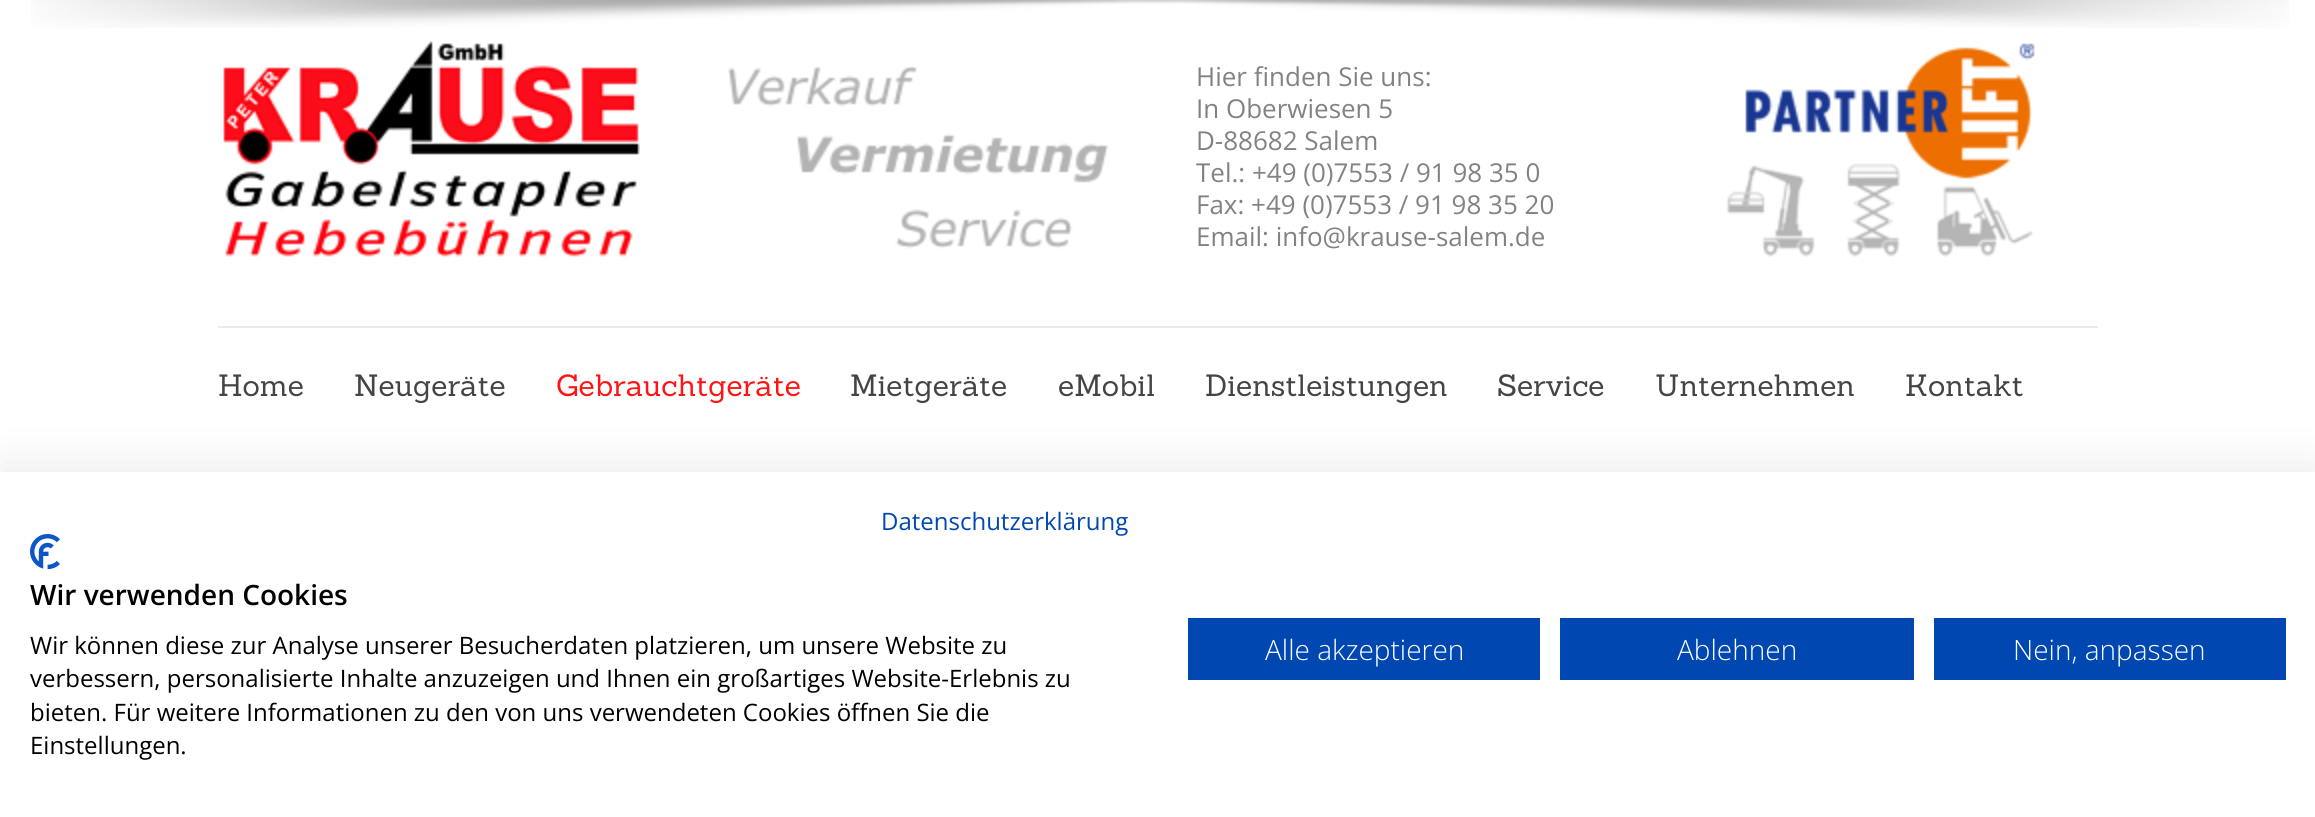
import math
import cairo

surface = cairo.ImageSurface(cairo.FORMAT_RGB24, 2315, 817)
cr = cairo.Context(surface)
options = cairo.FontOptions()
options.set_hint_metrics(cairo.HINT_METRICS_OFF)
options.set_hint_style(cairo.HINT_STYLE_NONE)
cr.set_font_options(options)
cr.set_miter_limit(4)


def rgb(code):
    cr.set_source_rgb(*(v / 255 for v in bytes.fromhex(code[-6:])))


def rrect(x, y, w, h, r):
    cr.new_sub_path()
    for i, (u, v) in enumerate([(x + w - r, y + h - r), (x + r, y + h - r), (x + r, y + r), (x + w - r, y + r)]):
        cr.arc(u, v, r, i * math.pi / 2, (i + 1) * math.pi / 2)
    cr.close_path()


def soft_shadow(x, y, w, h, r, blur, alpha):
    cr.push_group_with_content(cairo.CONTENT_ALPHA)
    cr.set_operator(cairo.OPERATOR_SOURCE)
    for i in range(15, -16, -2):
        e = blur * i / 6
        if min(w, h) + 2 * e > 0:
            cr.set_source_rgba(0, 0, 0, alpha * math.erfc((i - 1) / 8.5) / 2)
            rrect(x - e, y - e, w + 2 * e, h + 2 * e, max(0, min(r + e + blur * .6, min(w, h) / 2 + e)))
            cr.fill()
    cr.mask(cr.pop_group())


def image(path, x, y, w, h):
    cr.save()
    cr.set_source_surface(cairo.ImageSurface.create_from_png(path), x, y)
    cr.rectangle(x, y, w, h)
    cr.fill()
    cr.restore()


rgb("#ffffff")
cr.paint()
image("img/1.png", 31, 0, 2258, 28)
image("img/2.png", 223, 41, 417, 216)
image("img/3.png", 727, 66, 382, 183)
image("img/4.png", 1726, 43, 309, 214)
rgb("#ebebeb")
cr.rectangle(218, 326, 1880, 2)
cr.fill()
rgb("#000000")
soft_shadow(0, 472, 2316, 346, 0, 24, 0.1)
rgb("#ffffff")
cr.rectangle(0, 472, 2315, 345)
cr.fill()
image("img/5.png", 30, 534, 30, 36)
for x, y, w, h, color in [
    (1188, 618, 352, 62, "#0047b2"),
    (1560, 618, 354, 62, "#0047b2"),
    (1934, 618, 352, 62, "#0047b2"),
]:
    rgb(color)
    cr.rectangle(x, y, w, h)
    cr.fill()
cr.select_font_face("Open Sans")
cr.set_font_size(26)
rgb("#828282")
for x, y, s in [
    (1196, 86, "Hier finden Sie uns:"),
    (1196, 118, "In Oberwiesen 5"),
    (1196, 150, "D-88682 Salem"),
    (1196, 182, "Tel.: +49 (0)7553 / 91 98 35 0"),
    (1196, 214, "Fax: +49 (0)7553 / 91 98 35 20"),
    (1196, 246, "Email: info@krause-salem.de"),
]:
    cr.move_to(x, y)
    cr.show_text(s)
cr.select_font_face("Sanchez")
cr.set_font_size(30)
rgb("#444444")
cr.move_to(218, 396)
cr.show_text("Home")
cr.move_to(354, 396)
cr.show_text("Neugeräte")
rgb("#ff1414")
cr.move_to(556, 396)
cr.show_text("Gebrauchtgeräte")
rgb("#444444")
for x, y, s in [
    (850, 396, "Mietgeräte"),
    (1058, 396, "eMobil"),
    (1205, 396, "Dienstleistungen"),
    (1497, 396, "Service"),
    (1655, 396, "Unternehmen"),
    (1905, 396, "Kontakt"),
]:
    cr.move_to(x, y)
    cr.show_text(s)
cr.select_font_face("Open Sans")
cr.set_font_size(24)
rgb("#0047b2")
cr.move_to(881, 530)
cr.show_text("Datenschutzerklärung")
cr.select_font_face("Open Sans SemiBold")
cr.set_font_size(28)
rgb("#000000")
cr.move_to(30, 605)
cr.show_text("Wir verwenden Cookies")
cr.select_font_face("Open Sans")
cr.set_font_size(24)
for x, y, s in [
    (30, 654, "Wir können diese zur Analyse unserer Besucherdaten platzieren, um unsere Website zu"),
    (30, 687, "verbessern, personalisierte Inhalte anzuzeigen und Ihnen ein großartiges Website-Erlebnis zu"),
    (30, 721, "bieten. Für weitere Informationen zu den von uns verwendeten Cookies öffnen Sie die"),
    (30, 754, "Einstellungen."),
]:
    cr.move_to(x, y)
    cr.show_text(s)
cr.select_font_face("Open Sans Light")
cr.set_font_size(28)
rgb("#ffffff")
for x, y, s in [
    (1265, 660, "Alle akzeptieren"),
    (1677, 660, "Ablehnen"),
    (2013, 660, "Nein, anpassen"),
]:
    cr.move_to(x, y)
    cr.show_text(s)
surface.write_to_png("page.png")
